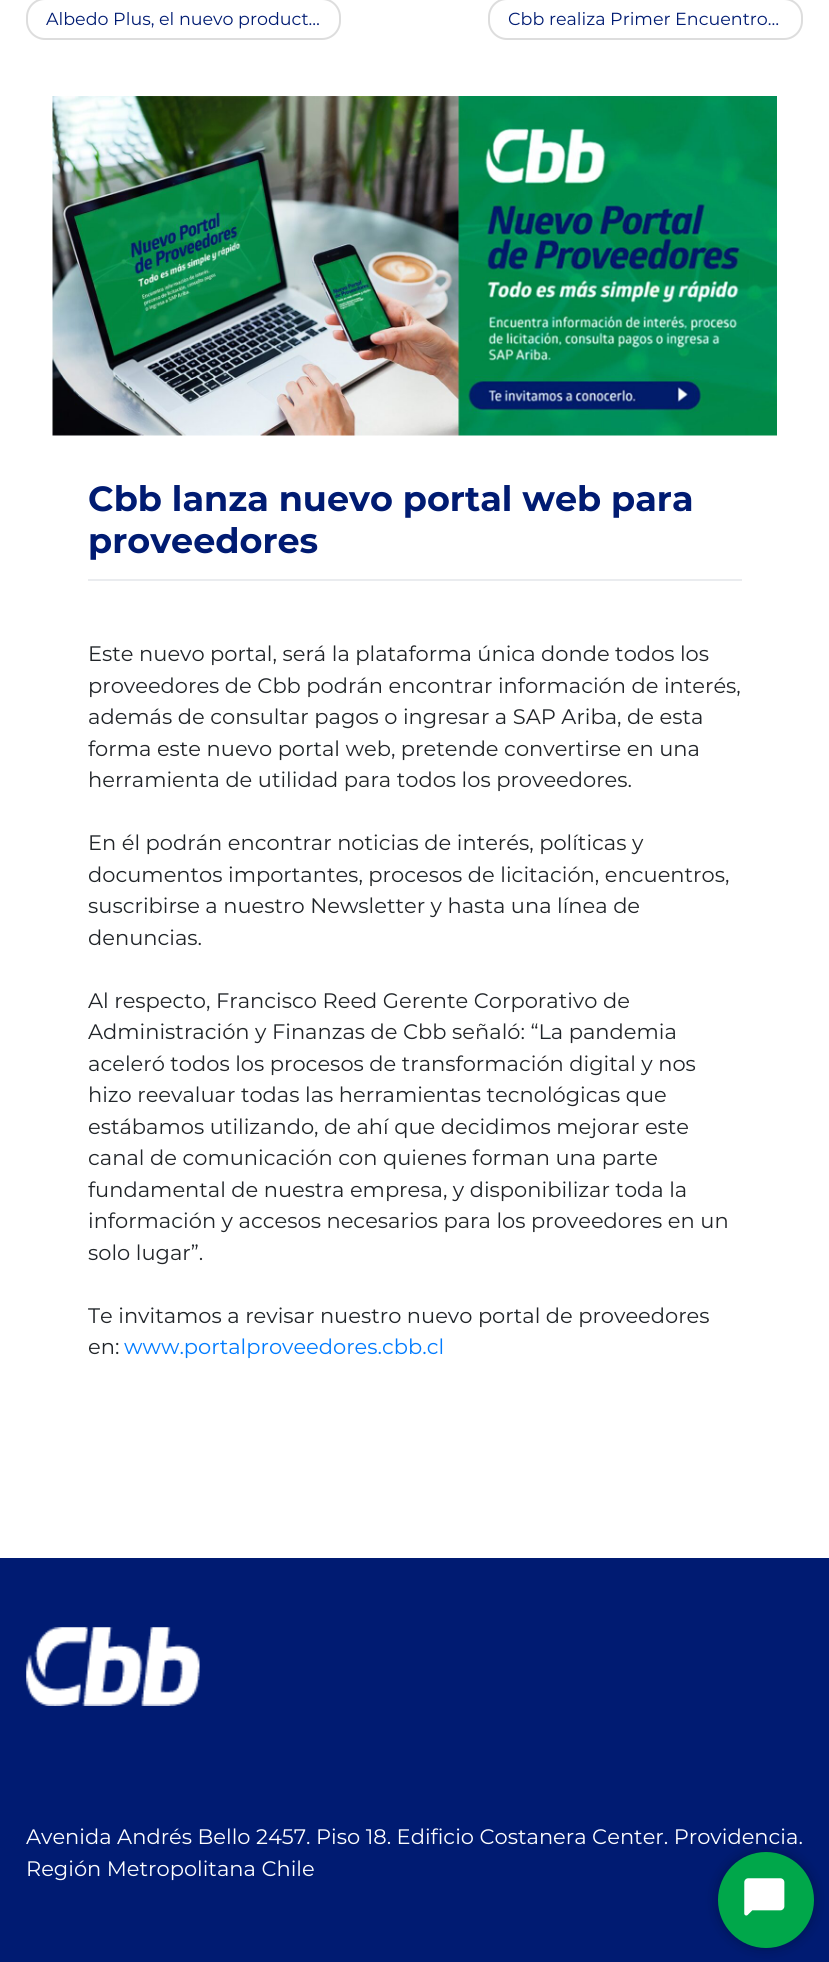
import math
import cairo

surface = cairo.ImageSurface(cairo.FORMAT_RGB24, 829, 1962)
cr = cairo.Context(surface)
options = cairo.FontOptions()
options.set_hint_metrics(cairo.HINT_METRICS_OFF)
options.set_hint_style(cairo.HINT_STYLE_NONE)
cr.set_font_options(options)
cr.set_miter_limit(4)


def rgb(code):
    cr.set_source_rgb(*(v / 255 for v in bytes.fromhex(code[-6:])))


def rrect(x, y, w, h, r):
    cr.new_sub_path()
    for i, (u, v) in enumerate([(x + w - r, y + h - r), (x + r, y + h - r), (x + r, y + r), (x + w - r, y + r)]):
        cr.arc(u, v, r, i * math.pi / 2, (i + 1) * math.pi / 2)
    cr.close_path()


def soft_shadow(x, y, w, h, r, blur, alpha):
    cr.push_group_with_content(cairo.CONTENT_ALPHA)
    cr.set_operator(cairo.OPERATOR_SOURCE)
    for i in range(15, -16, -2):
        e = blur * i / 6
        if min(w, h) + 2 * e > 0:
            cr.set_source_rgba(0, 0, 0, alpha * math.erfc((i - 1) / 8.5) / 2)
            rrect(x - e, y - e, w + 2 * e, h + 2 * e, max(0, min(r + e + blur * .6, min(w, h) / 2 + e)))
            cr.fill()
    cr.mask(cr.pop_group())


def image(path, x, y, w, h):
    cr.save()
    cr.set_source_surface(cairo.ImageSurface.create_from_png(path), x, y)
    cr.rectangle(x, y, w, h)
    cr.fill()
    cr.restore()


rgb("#ffffff")
cr.paint()
rrect(27, -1, 313, 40, 18)
rgb("#dddddd")
cr.stroke()
rrect(489, -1, 313, 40, 18)
cr.stroke()
image("img/1.png", 52, 96, 725, 340)
rgb("#eaecef")
cr.rectangle(88, 579, 654, 2)
cr.fill()
rgb("#001b72")
cr.rectangle(0, 1558, 829, 404)
cr.fill()
image("img/2.png", 26, 1627, 174, 79)
rgb("#000000")
soft_shadow(718, 1852, 96, 96, 48, 7, 0.3)
rgb("#00a74a")
cr.arc(766, 1900, 48, 0, 2 * math.pi)
cr.fill()
image("img/3.png", 744, 1878, 41, 38)
cr.select_font_face("Montserrat")
cr.set_font_size(17.5)
rgb("#001b72")
cr.move_to(46, 25)
cr.show_text("Albedo Plus, el nuevo product…")
cr.move_to(508, 25)
cr.show_text("Cbb realiza Primer Encuentro…")
cr.select_font_face("Montserrat", cairo.FONT_SLANT_NORMAL, cairo.FONT_WEIGHT_BOLD)
cr.set_font_size(35)
cr.move_to(88, 511)
cr.show_text("Cbb lanza nuevo portal web para")
cr.move_to(88, 553)
cr.show_text("proveedores")
cr.select_font_face("Montserrat")
cr.set_font_size(21)
rgb("#212529")
for x, y, s in [
    (88, 661, "Este nuevo portal, será la plataforma única donde todos los"),
    (88, 693, "proveedores de Cbb podrán encontrar información de interés,"),
    (88, 724, "además de consultar pagos o ingresar a SAP Ariba, de esta"),
    (88, 756, "forma este nuevo portal web, pretende convertirse en una"),
    (88, 787, "herramienta de utilidad para todos los proveedores."),
    (88, 850, "En él podrán encontrar noticias de interés, políticas y"),
    (88, 882, "documentos importantes, procesos de licitación, encuentros,"),
    (88, 913, "suscribirse a nuestro Newsletter y hasta una línea de"),
    (88, 945, "denuncias."),
    (88, 1008, "Al respecto, Francisco Reed Gerente Corporativo de"),
    (88, 1039, "Administración y Finanzas de Cbb señaló: “La pandemia"),
    (88, 1071, "aceleró todos los procesos de transformación digital y nos"),
    (88, 1102, "hizo reevaluar todas las herramientas tecnológicas que"),
    (88, 1134, "estábamos utilizando, de ahí que decidimos mejorar este"),
    (88, 1165, "canal de comunicación con quienes forman una parte"),
    (88, 1197, "fundamental de nuestra empresa, y disponibilizar toda la"),
    (88, 1228, "información y accesos necesarios para los proveedores en un"),
    (88, 1260, "solo lugar”."),
    (88, 1323, "Te invitamos a revisar nuestro nuevo portal de proveedores"),
    (88, 1354, "en:"),
]:
    cr.move_to(x, y)
    cr.show_text(s)
rgb("#007bff")
cr.move_to(124, 1354)
cr.show_text("www.portalproveedores.cbb.cl")
rgb("#ffffff")
cr.move_to(26, 1844)
cr.show_text("Avenida Andrés Bello 2457. Piso 18. Edificio Costanera Center. Providencia.")
cr.move_to(26, 1876)
cr.show_text("Región Metropolitana Chile")
surface.write_to_png("page.png")
